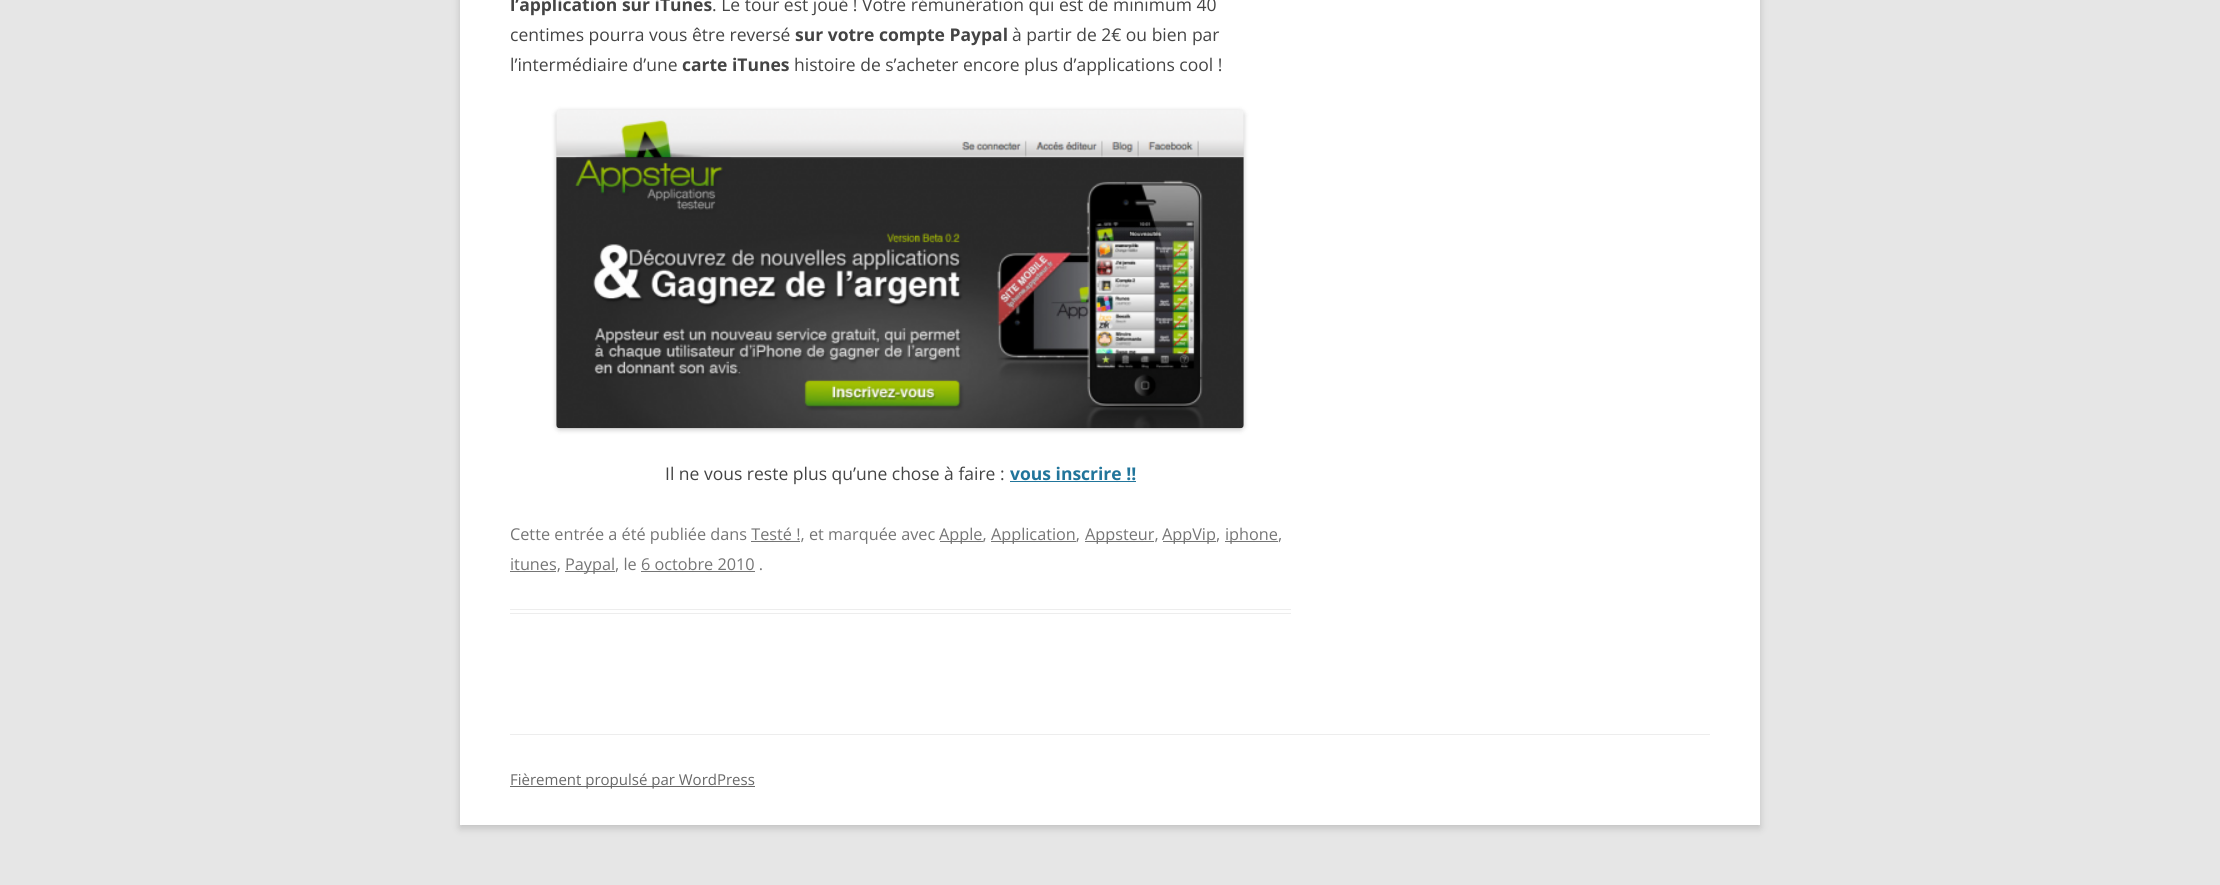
import math
import cairo

surface = cairo.ImageSurface(cairo.FORMAT_RGB24, 2220, 885)
cr = cairo.Context(surface)
options = cairo.FontOptions()
options.set_hint_metrics(cairo.HINT_METRICS_OFF)
options.set_hint_style(cairo.HINT_STYLE_NONE)
cr.set_font_options(options)
cr.set_miter_limit(4)


def rgb(code):
    cr.set_source_rgb(*(v / 255 for v in bytes.fromhex(code[-6:])))


def rrect(x, y, w, h, r):
    cr.new_sub_path()
    for i, (u, v) in enumerate([(x + w - r, y + h - r), (x + r, y + h - r), (x + r, y + r), (x + w - r, y + r)]):
        cr.arc(u, v, r, i * math.pi / 2, (i + 1) * math.pi / 2)
    cr.close_path()


def soft_shadow(x, y, w, h, r, blur, alpha):
    cr.push_group_with_content(cairo.CONTENT_ALPHA)
    cr.set_operator(cairo.OPERATOR_SOURCE)
    for i in range(15, -16, -2):
        e = blur * i / 6
        if min(w, h) + 2 * e > 0:
            cr.set_source_rgba(0, 0, 0, alpha * math.erfc((i - 1) / 8.5) / 2)
            rrect(x - e, y - e, w + 2 * e, h + 2 * e, max(0, min(r + e + blur * .6, min(w, h) / 2 + e)))
            cr.fill()
    cr.mask(cr.pop_group())


def image(path, x, y, w, h):
    cr.save()
    cr.set_source_surface(cairo.ImageSurface.create_from_png(path), x, y)
    cr.rectangle(x, y, w, h)
    cr.fill()
    cr.restore()


rgb("#e6e6e6")
cr.paint()
rgb("#646464")
soft_shadow(460, -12, 1300, 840, 0, 4, 0.3)
for x, y, w, h, color in [
    (460, 0, 1300, 825, "#ffffff"),
    (510, 609, 781, 1, "#ededed"),
    (510, 613, 781, 1, "#ededed"),
]:
    rgb(color)
    cr.rectangle(x, y, w, h)
    cr.fill()
rgb("#000000")
soft_shadow(556, 111, 688, 319, 4, 2.5, 0.2)
image("img/1.png", 556, 110, 688, 319)
for x, y, w, h, color in [
    (1010, 481, 126, 1, "#21759b"),
    (940, 541, 43, 1, "#757575"),
    (991, 541, 85, 1, "#757575"),
    (1085, 541, 69, 1, "#757575"),
    (1163, 541, 53, 1, "#757575"),
    (1225, 541, 53, 1, "#757575"),
    (751, 541, 49, 1, "#757575"),
    (510, 571, 46, 1, "#757575"),
    (565, 571, 50, 1, "#757575"),
    (641, 571, 114, 1, "#757575"),
    (510, 734, 1200, 1, "#ededed"),
    (510, 786, 245, 1, "#686868"),
]:
    rgb(color)
    cr.rectangle(x, y, w, h)
    cr.fill()
cr.select_font_face("Open Sans", cairo.FONT_SLANT_NORMAL, cairo.FONT_WEIGHT_BOLD)
cr.set_font_size(17.5)
rgb("#444444")
cr.move_to(510, 11)
cr.show_text("l’application sur iTunes")
cr.select_font_face("Open Sans")
cr.move_to(712, 11)
cr.show_text(". Le tour est joué ! Votre rémunération qui est de minimum 40")
cr.move_to(510, 41)
cr.show_text("centimes pourra vous être reversé")
cr.select_font_face("Open Sans", cairo.FONT_SLANT_NORMAL, cairo.FONT_WEIGHT_BOLD)
cr.move_to(795, 41)
cr.show_text("sur votre compte Paypal")
cr.select_font_face("Open Sans")
cr.move_to(1012, 41)
cr.show_text("à partir de 2€ ou bien par")
cr.move_to(510, 71)
cr.show_text("l’intermédiaire d’une")
cr.select_font_face("Open Sans", cairo.FONT_SLANT_NORMAL, cairo.FONT_WEIGHT_BOLD)
cr.move_to(682, 71)
cr.show_text("carte iTunes")
cr.select_font_face("Open Sans")
cr.move_to(794, 71)
cr.show_text("histoire de s’acheter encore plus d’applications cool !")
cr.move_to(665, 480)
cr.show_text("Il ne vous reste plus qu’une chose à faire :")
cr.select_font_face("Open Sans", cairo.FONT_SLANT_NORMAL, cairo.FONT_WEIGHT_BOLD)
rgb("#21759b")
cr.move_to(1010, 480)
cr.show_text("vous inscrire !!")
cr.select_font_face("Open Sans")
cr.set_font_size(16.25)
rgb("#757575")
for x, y, s in [
    (510, 540, "Cette entrée a été publiée dans Testé !, et marquée avec"),
    (939, 540, "Apple,"),
    (991, 540, "Application,"),
    (1085, 540, "Appsteur,"),
    (1162, 540, "AppVip,"),
    (1225, 540, "iphone,"),
    (510, 570, "itunes,"),
    (565, 570, "Paypal, le 6 octobre 2010 ."),
]:
    cr.move_to(x, y)
    cr.show_text(s)
cr.set_font_size(15)
rgb("#686868")
cr.move_to(510, 785)
cr.show_text("Fièrement propulsé par WordPress")
surface.write_to_png("page.png")
